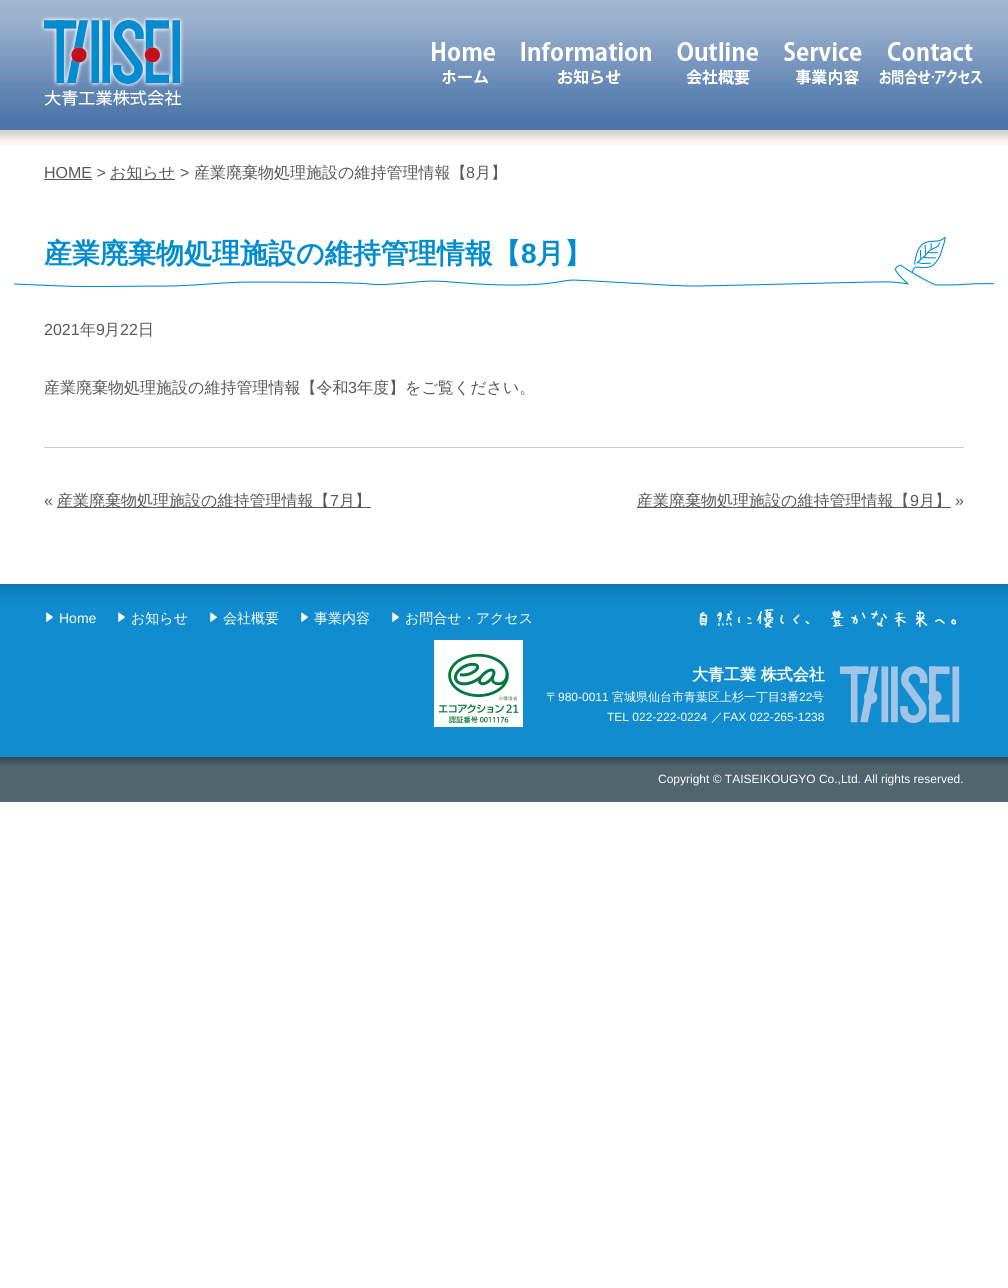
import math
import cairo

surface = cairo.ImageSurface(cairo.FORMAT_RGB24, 1008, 1288)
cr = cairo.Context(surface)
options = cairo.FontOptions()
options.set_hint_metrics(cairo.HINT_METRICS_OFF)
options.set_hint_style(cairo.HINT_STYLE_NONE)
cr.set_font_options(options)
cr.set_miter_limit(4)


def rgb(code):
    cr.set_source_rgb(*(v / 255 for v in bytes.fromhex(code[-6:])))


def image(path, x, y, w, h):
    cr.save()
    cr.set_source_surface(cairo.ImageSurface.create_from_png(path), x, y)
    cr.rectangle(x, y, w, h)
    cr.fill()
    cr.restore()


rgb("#ffffff")
cr.paint()
image("img/1.png", 0, 0, 1008, 130)
image("img/2.png", 40, 16, 144, 90)
image("img/3.png", 432, 42, 63, 42)
image("img/4.png", 521, 42, 130, 43)
image("img/5.png", 677, 42, 81, 43)
image("img/6.png", 784, 42, 78, 43)
image("img/7.png", 879, 42, 103, 43)
image("img/8.png", 0, 130, 1008, 16)
rgb("#595757")
cr.rectangle(44, 179, 48, 1)
cr.fill()
cr.rectangle(110, 179, 65, 1)
cr.fill()
image("img/9.png", 14, 237, 980, 50)
for x, y, w, h, color in [
    (44, 447, 920, 1, "#cccccc"),
    (57, 507, 314, 1, "#595757"),
    (637, 507, 314, 1, "#595757"),
]:
    rgb(color)
    cr.rectangle(x, y, w, h)
    cr.fill()
image("img/10.png", 0, 584, 1008, 173)
image("img/11.png", 46, 612, 7, 10)
image("img/11.png", 118, 612, 7, 10)
image("img/11.png", 210, 612, 7, 10)
image("img/11.png", 301, 612, 7, 10)
image("img/11.png", 392, 612, 7, 10)
image("img/12.png", 434, 640, 89, 87)
image("img/13.png", 699, 609, 261, 114)
image("img/14.png", 0, 757, 1008, 45)
cr.select_font_face("Liberation Sans")
cr.set_font_size(16)
cr.move_to(44, 178)
cr.show_text("HOME >")
cr.select_font_face("WenQuanYi Zen Hei Medium")
cr.move_to(110, 178)
cr.show_text("お知らせ")
cr.select_font_face("Liberation Sans")
cr.move_to(180, 178)
cr.show_text(">")
cr.select_font_face("WenQuanYi Zen Hei Medium")
cr.move_to(194, 178)
cr.show_text("産業廃棄物処理施設の維持管理情報【")
cr.select_font_face("Liberation Sans")
cr.move_to(466, 178)
cr.show_text("8")
cr.select_font_face("WenQuanYi Zen Hei Medium")
cr.move_to(475, 178)
cr.show_text("月】")
cr.select_font_face("WenQuanYi Zen Hei", cairo.FONT_SLANT_NORMAL, cairo.FONT_WEIGHT_BOLD)
cr.set_font_size(28)
rgb("#008cce")
cr.move_to(44, 263)
cr.show_text("産業廃棄物処理施設の維持管理情報【")
cr.select_font_face("Liberation Sans", cairo.FONT_SLANT_NORMAL, cairo.FONT_WEIGHT_BOLD)
cr.move_to(521, 263)
cr.show_text("8")
cr.select_font_face("WenQuanYi Zen Hei", cairo.FONT_SLANT_NORMAL, cairo.FONT_WEIGHT_BOLD)
cr.move_to(536, 263)
cr.show_text("月】")
cr.select_font_face("Liberation Sans")
cr.set_font_size(16)
rgb("#595757")
cr.move_to(44, 335)
cr.show_text("2021")
cr.select_font_face("WenQuanYi Zen Hei Medium")
cr.move_to(80, 335)
cr.show_text("年")
cr.select_font_face("Liberation Sans")
cr.move_to(96, 335)
cr.show_text("9")
cr.select_font_face("WenQuanYi Zen Hei Medium")
cr.move_to(104, 335)
cr.show_text("月")
cr.select_font_face("Liberation Sans")
cr.move_to(120, 335)
cr.show_text("22")
cr.select_font_face("WenQuanYi Zen Hei Medium")
cr.move_to(138, 335)
cr.show_text("日")
cr.move_to(44, 393)
cr.show_text("産業廃棄物処理施設の維持管理情報【令和")
cr.select_font_face("Liberation Sans")
cr.move_to(348, 393)
cr.show_text("3")
cr.select_font_face("WenQuanYi Zen Hei Medium")
cr.move_to(357, 393)
cr.show_text("年度】をご覧ください。")
cr.select_font_face("Liberation Sans")
cr.move_to(44, 506)
cr.show_text("«")
cr.select_font_face("WenQuanYi Zen Hei Medium")
cr.move_to(57, 506)
cr.show_text("産業廃棄物処理施設の維持管理情報【")
cr.select_font_face("Liberation Sans")
cr.move_to(330, 506)
cr.show_text("7")
cr.select_font_face("WenQuanYi Zen Hei Medium")
cr.move_to(339, 506)
cr.show_text("月】")
cr.move_to(637, 506)
cr.show_text("産業廃棄物処理施設の維持管理情報【")
cr.select_font_face("Liberation Sans")
cr.move_to(910, 506)
cr.show_text("9")
cr.select_font_face("WenQuanYi Zen Hei Medium")
cr.move_to(919, 506)
cr.show_text("月】")
cr.select_font_face("Liberation Sans")
cr.move_to(955, 506)
cr.show_text("»")
cr.set_font_size(14)
rgb("#ffffff")
cr.move_to(59, 623)
cr.show_text("Home")
cr.select_font_face("WenQuanYi Zen Hei Medium")
for x, y, s in [
    (131, 623, "お知らせ"),
    (223, 623, "会社概要"),
    (314, 623, "事業内容"),
    (405, 623, "お問合せ・アクセス"),
]:
    cr.move_to(x, y)
    cr.show_text(s)
cr.select_font_face("WenQuanYi Zen Hei", cairo.FONT_SLANT_NORMAL, cairo.FONT_WEIGHT_BOLD)
cr.set_font_size(16)
cr.move_to(692, 680)
cr.show_text("大青工業 株式会社")
cr.select_font_face("WenQuanYi Zen Hei Medium")
cr.set_font_size(12)
cr.move_to(546, 701)
cr.show_text("〒")
cr.select_font_face("Liberation Sans")
cr.move_to(558, 701)
cr.show_text("980-0011")
cr.select_font_face("WenQuanYi Zen Hei Medium")
cr.move_to(612, 701)
cr.show_text("宮城県仙台市青葉区上杉一丁目")
cr.select_font_face("Liberation Sans")
cr.move_to(780, 701)
cr.show_text("3")
cr.select_font_face("WenQuanYi Zen Hei Medium")
cr.move_to(787, 701)
cr.show_text("番")
cr.select_font_face("Liberation Sans")
cr.move_to(799, 701)
cr.show_text("22")
cr.select_font_face("WenQuanYi Zen Hei Medium")
cr.move_to(812, 701)
cr.show_text("号")
cr.select_font_face("Liberation Sans")
cr.move_to(607, 721)
cr.show_text("TEL 022-222-0224")
cr.select_font_face("WenQuanYi Zen Hei Medium")
cr.move_to(711, 721)
cr.show_text("／")
cr.select_font_face("Liberation Sans")
cr.move_to(723, 721)
cr.show_text("FAX 022-265-1238")
cr.move_to(658, 783)
cr.show_text("Copyright © TAISEIKOUGYO Co.,Ltd. All rights reserved.")
surface.write_to_png("page.png")
